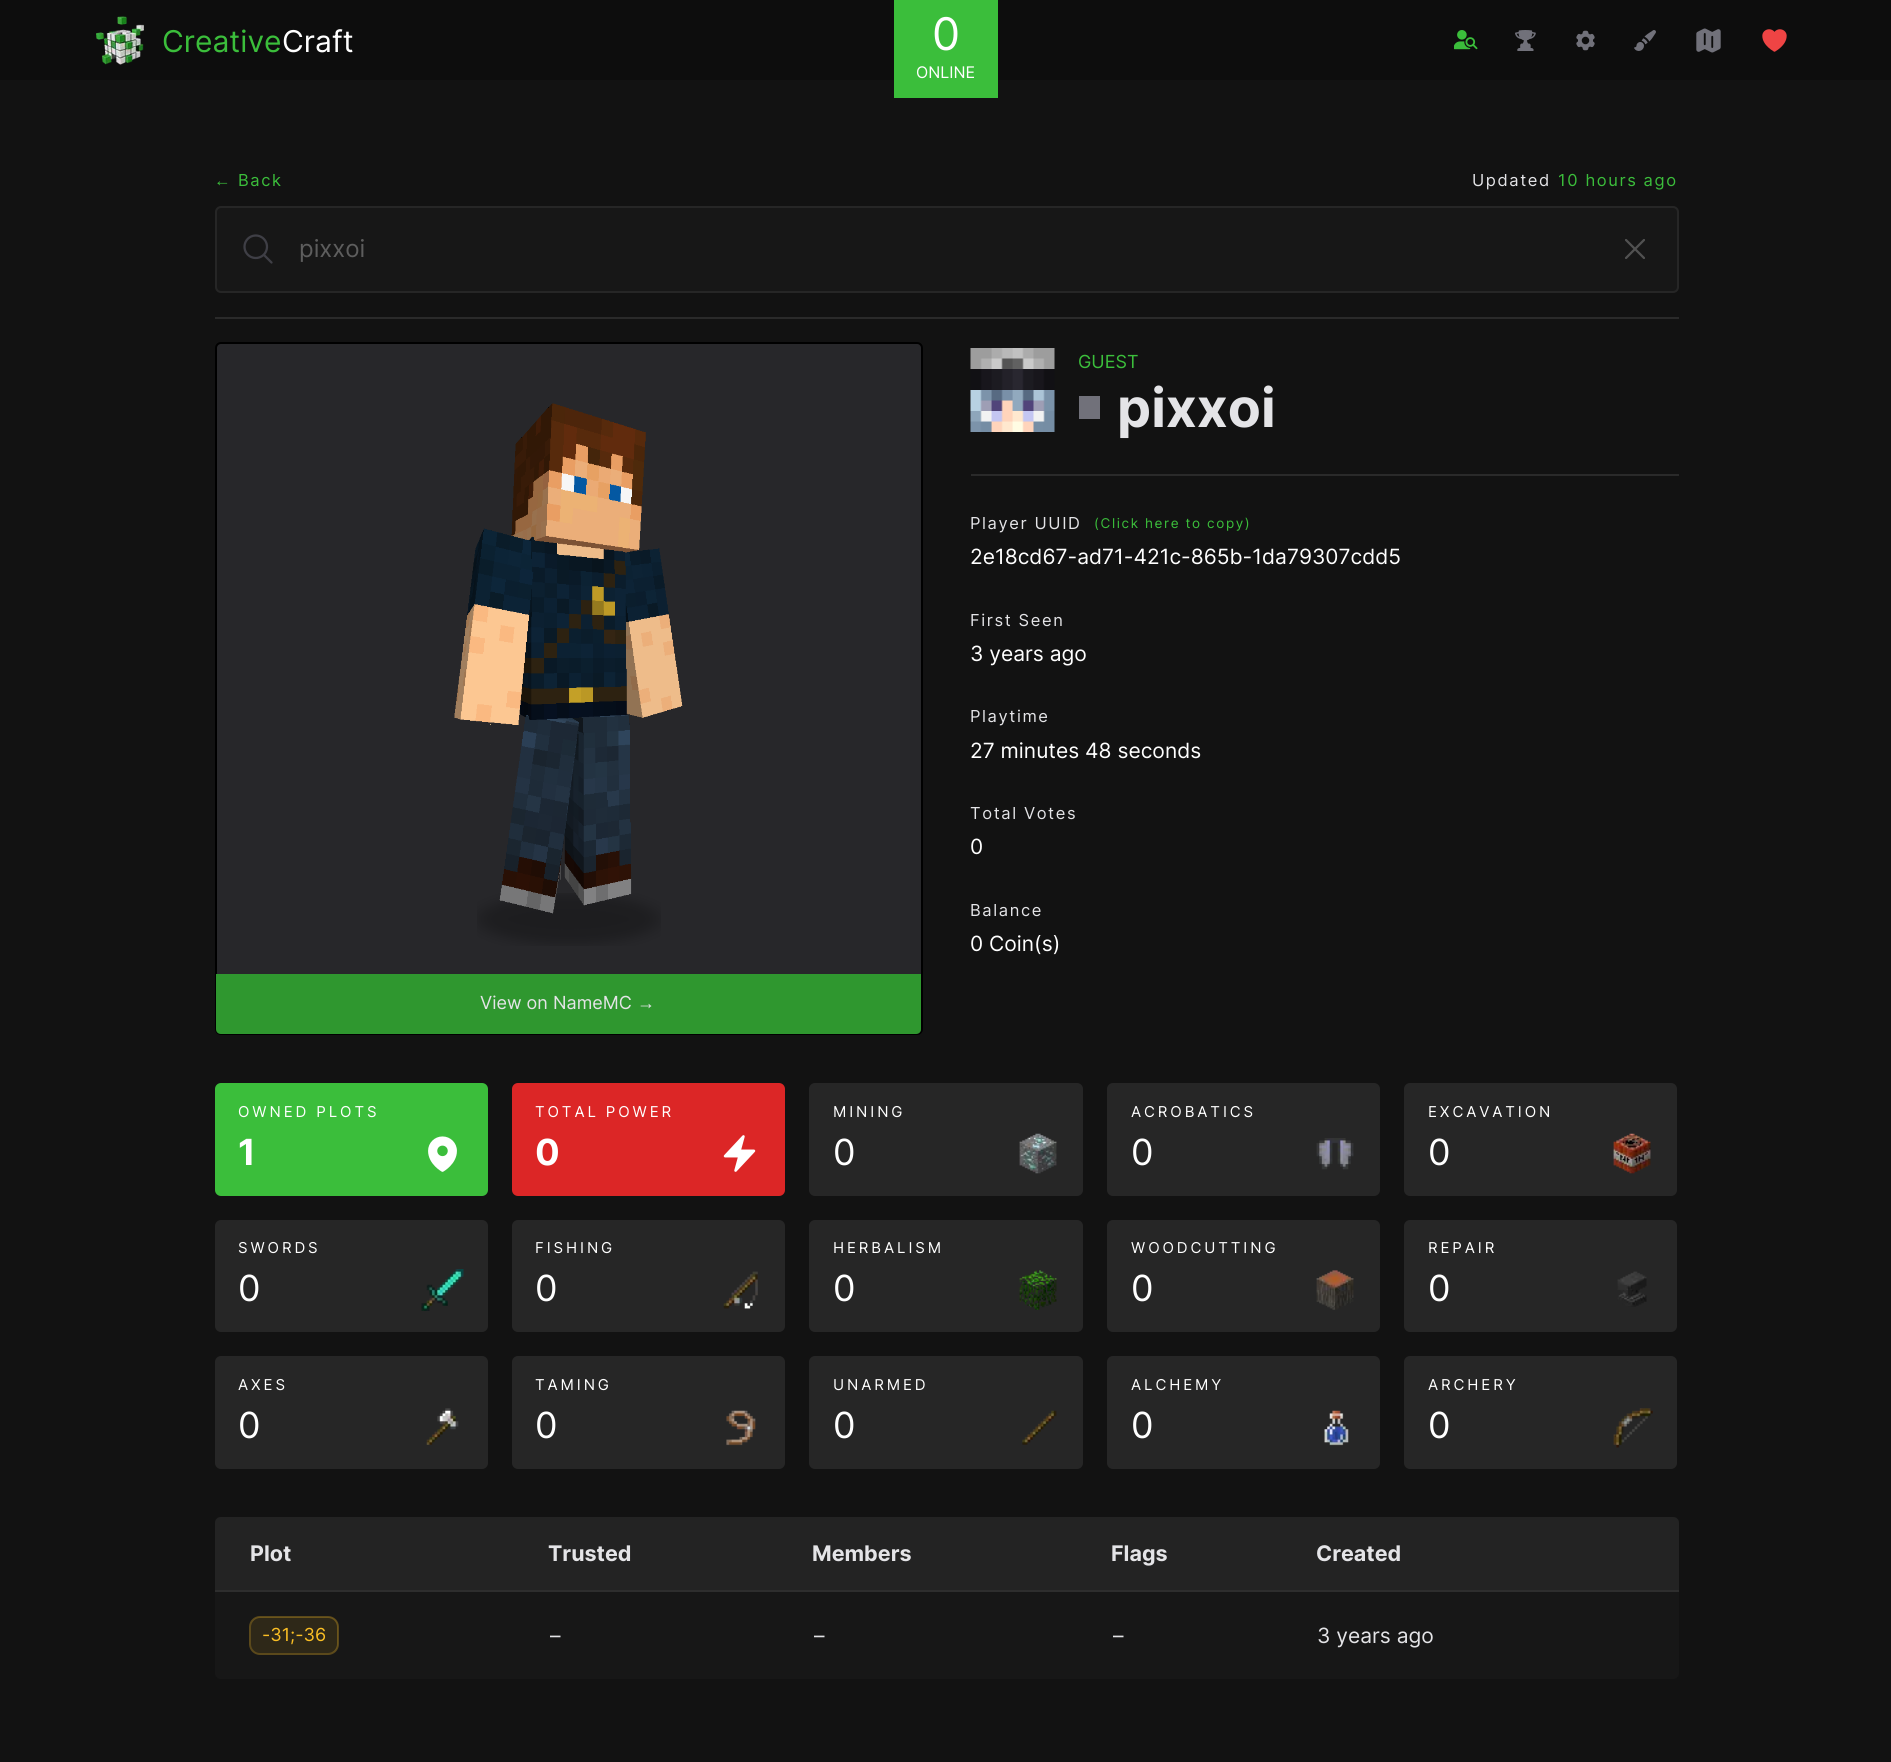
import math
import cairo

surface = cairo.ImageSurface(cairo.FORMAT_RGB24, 1891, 1762)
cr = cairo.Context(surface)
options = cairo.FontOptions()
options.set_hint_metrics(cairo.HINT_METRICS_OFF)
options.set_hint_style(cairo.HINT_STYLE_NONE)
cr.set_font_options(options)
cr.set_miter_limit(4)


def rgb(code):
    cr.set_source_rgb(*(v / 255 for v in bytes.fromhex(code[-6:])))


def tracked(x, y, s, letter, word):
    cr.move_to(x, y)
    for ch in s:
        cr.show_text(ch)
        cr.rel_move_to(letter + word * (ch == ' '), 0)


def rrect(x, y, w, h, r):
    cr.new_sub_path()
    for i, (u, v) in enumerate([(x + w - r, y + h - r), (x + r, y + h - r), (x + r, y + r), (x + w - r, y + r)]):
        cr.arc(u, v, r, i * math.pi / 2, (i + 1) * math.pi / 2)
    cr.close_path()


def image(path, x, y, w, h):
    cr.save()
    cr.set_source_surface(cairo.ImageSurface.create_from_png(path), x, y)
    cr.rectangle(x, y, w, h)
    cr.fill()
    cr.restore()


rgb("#121212")
cr.paint()
rgb("#0d0d0d")
cr.rectangle(0, 0, 1891, 80)
cr.fill()
image("img/1.png", 96, 16, 48, 49)
rgb("#3bbe3b")
cr.rectangle(894, 0, 104, 98)
cr.fill()
image("img/2.png", 1454, 30, 24, 20)
image("img/3.png", 1515, 30, 21, 21)
image("img/4.png", 1576, 30, 19, 21)
image("img/5.png", 1634, 30, 22, 21)
image("img/6.png", 1696, 28, 25, 25)
image("img/7.png", 1762, 29, 25, 23)
rgb("#2a2a2a")
cr.rectangle(215, 317, 1464, 2)
cr.fill()
rgb("#171717")
rrect(216, 207, 1462, 85, 5)
cr.fill_preserve()
rgb("#262626")
cr.stroke()
image("img/8.png", 243, 234, 30, 30)
image("img/9.png", 1625, 239, 20, 20)
rgb("#2a2a2a")
cr.rectangle(971, 474, 708, 2)
cr.fill()
image("img/10.png", 970, 348, 85, 84)
rgb("#71717a")
cr.rectangle(1079, 396, 21, 23)
cr.fill()
rgb("#27272a")
rrect(216, 343, 706, 691, 5)
cr.fill_preserve()
rgb("#000000")
cr.stroke()
image("img/12.png", 477, 893, 184, 53)
image("img/11.png", 454, 403, 229, 511)
rgb("#2f972f")
cr.new_path()
cr.move_to(216, 974)
cr.line_to(921, 974)
cr.line_to(921, 1029)
cr.curve_to(921, 1032, 919, 1034, 916, 1034)
cr.line_to(221, 1034)
cr.curve_to(218, 1034, 216, 1032, 216, 1029)
cr.close_path()
cr.fill()
rgb("#3bbe3b")
rrect(215, 1083, 273, 113, 6)
cr.fill()
image("img/13.png", 428, 1136, 29, 36)
rgb("#dc2626")
rrect(512, 1083, 273, 113, 6)
cr.fill()
image("img/14.png", 723, 1135, 33, 37)
rgb("#262626")
rrect(809, 1083, 274, 113, 6)
cr.fill()
image("img/15.png", 1019, 1133, 38, 41)
rrect(1107, 1083, 273, 113, 6)
cr.fill()
image("img/16.png", 1316, 1138, 38, 32)
rrect(1404, 1083, 273, 113, 6)
cr.fill()
image("img/17.png", 1613, 1133, 38, 41)
rrect(215, 1220, 273, 112, 6)
cr.fill()
image("img/18.png", 421, 1269, 43, 42)
rrect(512, 1220, 273, 112, 6)
cr.fill()
image("img/19.png", 723, 1271, 35, 38)
rrect(809, 1220, 274, 112, 6)
cr.fill()
image("img/20.png", 1019, 1270, 38, 40)
rrect(1107, 1220, 273, 112, 6)
cr.fill()
image("img/21.png", 1316, 1270, 38, 40)
rrect(1404, 1220, 273, 112, 6)
cr.fill()
image("img/22.png", 1617, 1271, 30, 36)
rrect(215, 1356, 273, 113, 6)
cr.fill()
image("img/23.png", 426, 1408, 33, 37)
rrect(512, 1356, 273, 113, 6)
cr.fill()
image("img/24.png", 726, 1410, 30, 36)
rrect(809, 1356, 274, 113, 6)
cr.fill()
image("img/25.png", 1022, 1410, 35, 35)
rrect(1107, 1356, 273, 113, 6)
cr.fill()
image("img/26.png", 1324, 1410, 25, 36)
rrect(1404, 1356, 273, 113, 6)
cr.fill()
image("img/27.png", 1613, 1408, 40, 40)
rgb("#171717")
rrect(215, 1517, 1464, 162, 6)
cr.fill()
rgb("#232323")
cr.new_path()
cr.move_to(221, 1517)
cr.line_to(1673, 1517)
cr.curve_to(1676.5, 1517, 1679, 1519.5, 1679, 1523)
cr.line_to(1679, 1592)
cr.line_to(215, 1592)
cr.line_to(215, 1523)
cr.curve_to(215, 1519.5, 217.5, 1517, 221, 1517)
cr.close_path()
cr.fill()
rgb("#2e2e2e")
cr.rectangle(215, 1590, 1464, 2)
cr.fill()
rrect(250, 1617, 88, 37, 10)
rgb("#5b491b")
cr.stroke()
cr.set_source_rgba(0.984, 0.749, 0.141, 0.1)
rrect(251, 1617, 87, 36, 9)
cr.fill()
cr.select_font_face("Inter")
cr.set_font_size(30)
rgb("#3bbe3b")
cr.move_to(162, 52)
cr.show_text("Creative")
rgb("#ffffff")
cr.move_to(282, 52)
cr.show_text("Craft")
cr.set_font_size(45)
cr.move_to(932, 50)
cr.show_text("0")
cr.set_font_size(16)
cr.move_to(916, 78)
cr.show_text("ONLINE")
cr.select_font_face("Liberation Sans")
cr.set_font_size(16.5)
rgb("#3bbe3b")
tracked(214, 186, "←", 1.6, 0)
cr.select_font_face("Inter")
tracked(238, 186, "Back", 1.6, 0)
rgb("#e4e4e7")
tracked(1472, 186, "Updated", 1.6, 0)
rgb("#3bbe3b")
tracked(1558, 186, "10 hours ago", 1.6, 0)
cr.set_font_size(24)
rgb("#5d5d5d")
cr.move_to(299, 257)
cr.show_text("pixxoi")
cr.set_font_size(18)
rgb("#3bbe3b")
cr.move_to(1078, 368)
cr.show_text("GUEST")
cr.select_font_face("Inter", cairo.FONT_SLANT_NORMAL, cairo.FONT_WEIGHT_BOLD)
cr.set_font_size(54)
rgb("#e4e4e7")
cr.move_to(1117, 427)
cr.show_text("pixxoi")
cr.select_font_face("Inter")
cr.set_font_size(16.5)
tracked(970, 529, "Player UUID", 1.6, 0)
cr.set_font_size(13.5)
rgb("#3bbe3b")
tracked(1094, 528, "(Click here to copy)", 1.6, 0)
cr.set_font_size(21)
rgb("#ffffff")
cr.move_to(970, 564)
cr.show_text("2e18cd67-ad71-421c-865b-1da79307cdd5")
cr.set_font_size(16.5)
rgb("#e4e4e7")
tracked(970, 626, "First Seen", 1.6, 0)
cr.set_font_size(21)
rgb("#ffffff")
cr.move_to(970, 661)
cr.show_text("3 years ago")
cr.set_font_size(16.5)
rgb("#e4e4e7")
tracked(970, 722, "Playtime", 1.6, 0)
cr.set_font_size(21)
rgb("#ffffff")
cr.move_to(970, 758)
cr.show_text("27 minutes 48 seconds")
cr.set_font_size(16.5)
rgb("#e4e4e7")
tracked(970, 819, "Total Votes", 1.6, 0)
cr.set_font_size(21)
rgb("#ffffff")
cr.move_to(970, 854)
cr.show_text("0")
cr.set_font_size(16.5)
rgb("#e4e4e7")
tracked(970, 916, "Balance", 1.6, 0)
cr.set_font_size(21)
rgb("#ffffff")
cr.move_to(970, 951)
cr.show_text("0 Coin(s)")
cr.set_font_size(18)
rgb("#e4e4e7")
cr.move_to(480, 1009)
cr.show_text("View on NameMC")
cr.select_font_face("Liberation Sans")
cr.move_to(637, 1009)
cr.show_text("→")
cr.select_font_face("Inter")
cr.set_font_size(15)
rgb("#ffffff")
tracked(238, 1117, "OWNED PLOTS", 2.9, 0)
cr.select_font_face("Inter", cairo.FONT_SLANT_NORMAL, cairo.FONT_WEIGHT_BOLD)
cr.set_font_size(36)
cr.move_to(238, 1165)
cr.show_text("1")
cr.select_font_face("Inter")
cr.set_font_size(15)
tracked(535, 1117, "TOTAL POWER", 2.9, 0)
cr.select_font_face("Inter", cairo.FONT_SLANT_NORMAL, cairo.FONT_WEIGHT_BOLD)
cr.set_font_size(36)
cr.move_to(535, 1165)
cr.show_text("0")
cr.select_font_face("Inter")
cr.set_font_size(15)
tracked(833, 1117, "MINING", 2.9, 0)
cr.set_font_size(36)
cr.move_to(833, 1165)
cr.show_text("0")
cr.set_font_size(15)
tracked(1131, 1117, "ACROBATICS", 2.9, 0)
cr.set_font_size(36)
cr.move_to(1131, 1165)
cr.show_text("0")
cr.set_font_size(15)
tracked(1428, 1117, "EXCAVATION", 2.9, 0)
cr.set_font_size(36)
cr.move_to(1428, 1165)
cr.show_text("0")
cr.set_font_size(15)
tracked(238, 1253, "SWORDS", 2.9, 0)
cr.set_font_size(36)
cr.move_to(238, 1301)
cr.show_text("0")
cr.set_font_size(15)
tracked(535, 1253, "FISHING", 2.9, 0)
cr.set_font_size(36)
cr.move_to(535, 1301)
cr.show_text("0")
cr.set_font_size(15)
tracked(833, 1253, "HERBALISM", 2.9, 0)
cr.set_font_size(36)
cr.move_to(833, 1301)
cr.show_text("0")
cr.set_font_size(15)
tracked(1131, 1253, "WOODCUTTING", 2.9, 0)
cr.set_font_size(36)
cr.move_to(1131, 1301)
cr.show_text("0")
cr.set_font_size(15)
tracked(1428, 1253, "REPAIR", 2.9, 0)
cr.set_font_size(36)
cr.move_to(1428, 1301)
cr.show_text("0")
cr.set_font_size(15)
tracked(238, 1390, "AXES", 2.9, 0)
cr.set_font_size(36)
cr.move_to(238, 1438)
cr.show_text("0")
cr.set_font_size(15)
tracked(535, 1390, "TAMING", 2.9, 0)
cr.set_font_size(36)
cr.move_to(535, 1438)
cr.show_text("0")
cr.set_font_size(15)
tracked(833, 1390, "UNARMED", 2.9, 0)
cr.set_font_size(36)
cr.move_to(833, 1438)
cr.show_text("0")
cr.set_font_size(15)
tracked(1131, 1390, "ALCHEMY", 2.9, 0)
cr.set_font_size(36)
cr.move_to(1131, 1438)
cr.show_text("0")
cr.set_font_size(15)
tracked(1428, 1390, "ARCHERY", 2.9, 0)
cr.set_font_size(36)
cr.move_to(1428, 1438)
cr.show_text("0")
cr.select_font_face("Inter", cairo.FONT_SLANT_NORMAL, cairo.FONT_WEIGHT_BOLD)
cr.set_font_size(21.5)
rgb("#e4e4e7")
for x, y, s in [
    (250, 1561, "Plot"),
    (548, 1561, "Trusted"),
    (812, 1561, "Members"),
    (1111, 1561, "Flags"),
    (1316, 1561, "Created"),
]:
    cr.move_to(x, y)
    cr.show_text(s)
cr.select_font_face("Inter")
cr.set_font_size(18)
rgb("#fbbf24")
cr.move_to(262, 1641)
cr.show_text("-31;-36")
cr.set_font_size(21)
rgb("#e4e4e7")
for x, y, s in [
    (550, 1643, "–"),
    (814, 1643, "–"),
    (1113, 1643, "–"),
    (1317, 1643, "3 years ago"),
]:
    cr.move_to(x, y)
    cr.show_text(s)
surface.write_to_png("page.png")
